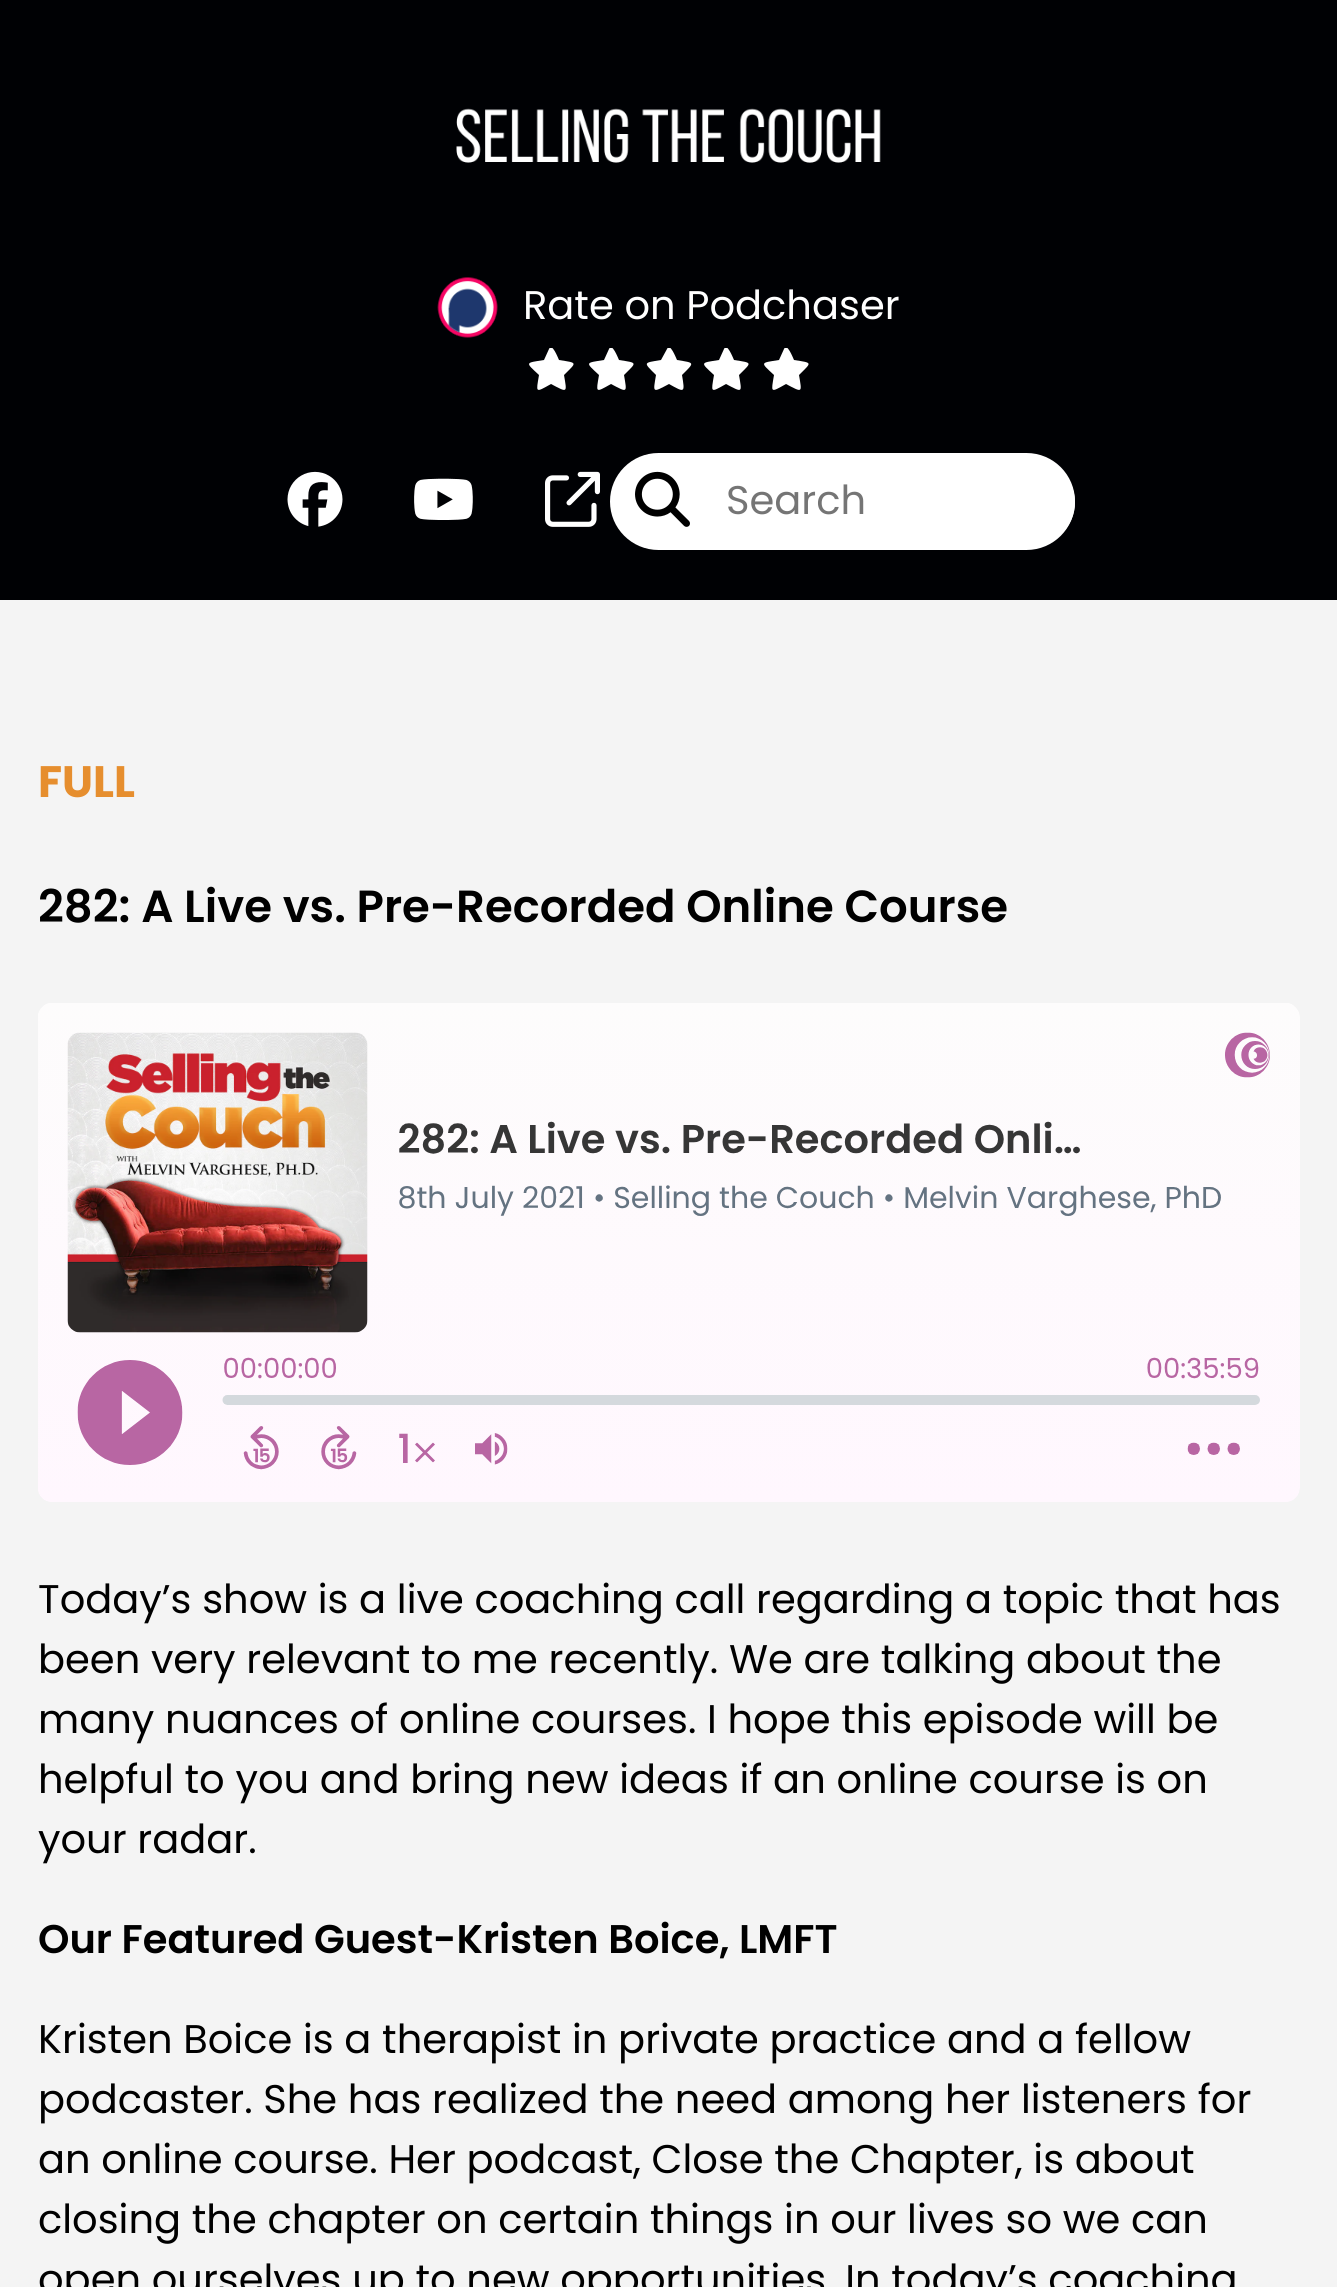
import math
import cairo

surface = cairo.ImageSurface(cairo.FORMAT_RGB24, 1337, 2287)
cr = cairo.Context(surface)
options = cairo.FontOptions()
options.set_hint_metrics(cairo.HINT_METRICS_OFF)
options.set_hint_style(cairo.HINT_STYLE_NONE)
cr.set_font_options(options)
cr.set_miter_limit(4)


def rgb(code):
    cr.set_source_rgb(*(v / 255 for v in bytes.fromhex(code[-6:])))


def rrect(x, y, w, h, r):
    cr.new_sub_path()
    for i, (u, v) in enumerate([(x + w - r, y + h - r), (x + r, y + h - r), (x + r, y + r), (x + w - r, y + r)]):
        cr.arc(u, v, r, i * math.pi / 2, (i + 1) * math.pi / 2)
    cr.close_path()


def image(path, x, y, w, h):
    cr.save()
    cr.set_source_surface(cairo.ImageSurface.create_from_png(path), x, y)
    cr.rectangle(x, y, w, h)
    cr.fill()
    cr.restore()


rgb("#000104")
cr.paint()
image("img/1.png", 456, 108, 425, 55)
image("img/2.png", 437, 277, 61, 61)
cr.save()
cr.rectangle(528, 348, 47, 42)
cr.clip()
rgb("#ffffff")
cr.new_path()
cr.move_to(549, 349)
cr.line_to(544, 360)
cr.curve_to(525, 363, 525, 362, 539, 375)
cr.curve_to(536, 393, 535, 393, 551, 384)
cr.curve_to(568, 393, 567, 393, 564, 375)
cr.curve_to(577, 362, 578, 363, 559, 360)
cr.curve_to(558, 358, 552, 342, 549, 349)
cr.close_path()
cr.fill()
cr.restore()
cr.save()
cr.rectangle(588, 348, 47, 42)
cr.clip()
rgb("#ffffff")
cr.new_path()
cr.move_to(609, 349)
cr.line_to(604, 360)
cr.curve_to(585, 363, 585, 362, 599, 375)
cr.curve_to(596, 393, 595, 393, 611, 384)
cr.curve_to(628, 393, 627, 393, 624, 375)
cr.curve_to(637, 362, 638, 363, 619, 360)
cr.curve_to(618, 358, 612, 342, 609, 349)
cr.close_path()
cr.fill()
cr.restore()
cr.save()
cr.rectangle(645, 348, 48, 42)
cr.clip()
rgb("#ffffff")
cr.new_path()
cr.move_to(667, 349)
cr.line_to(661, 360)
cr.curve_to(643, 363, 643, 362, 656, 375)
cr.curve_to(653, 393, 652, 393, 669, 384)
cr.curve_to(685, 393, 685, 393, 682, 375)
cr.curve_to(695, 362, 695, 363, 677, 360)
cr.curve_to(676, 358, 670, 342, 667, 349)
cr.close_path()
cr.fill()
cr.restore()
cr.save()
cr.rectangle(703, 348, 47, 42)
cr.clip()
rgb("#ffffff")
cr.new_path()
cr.move_to(724, 349)
cr.line_to(719, 360)
cr.curve_to(700, 363, 700, 362, 714, 375)
cr.curve_to(711, 393, 710, 393, 726, 384)
cr.curve_to(743, 393, 742, 393, 739, 375)
cr.curve_to(752, 362, 753, 363, 734, 360)
cr.curve_to(733, 358, 727, 342, 724, 349)
cr.close_path()
cr.fill()
cr.restore()
cr.save()
cr.rectangle(763, 348, 47, 42)
cr.clip()
rgb("#ffffff")
cr.new_path()
cr.move_to(784, 349)
cr.line_to(779, 360)
cr.curve_to(760, 363, 760, 362, 774, 375)
cr.curve_to(771, 393, 770, 393, 786, 384)
cr.curve_to(803, 393, 802, 393, 799, 375)
cr.curve_to(812, 362, 813, 363, 794, 360)
cr.curve_to(793, 358, 787, 342, 784, 349)
cr.close_path()
cr.fill()
cr.restore()
image("img/3.png", 287, 471, 56, 56)
image("img/4.png", 414, 478, 59, 42)
image("img/5.png", 545, 471, 55, 56)
rgb("#ffffff")
rrect(610, 453, 465, 97, 48.5)
cr.fill()
image("img/6.png", 635, 471, 55, 56)
rrect(725, 460, 350, 85, 42.5)
cr.fill()
rgb("#f4f4f4")
cr.rectangle(0, 600, 1337, 1687)
cr.fill()
image("img/7.png", 38, 1003, 1262, 499)
cr.select_font_face("Poppins")
cr.set_font_size(40)
rgb("#ffffff")
cr.move_to(523, 319)
cr.show_text("Rate on Podchaser")
rgb("#757575")
cr.move_to(726, 514)
cr.show_text("Search")
cr.select_font_face("Poppins", cairo.FONT_SLANT_NORMAL, cairo.FONT_WEIGHT_BOLD)
cr.set_font_size(44)
rgb("#e68e2e")
cr.move_to(38, 797)
cr.show_text("FULL")
cr.select_font_face("Poppins SemiBold")
cr.set_font_size(45)
rgb("#000000")
cr.move_to(38, 922)
cr.show_text("282: A Live vs. Pre-Recorded Online Course")
cr.select_font_face("Poppins")
cr.set_font_size(40)
for x, y, s in [
    (38, 1613, "Today’s show is a live coaching call regarding a topic that has"),
    (38, 1673, "been very relevant to me recently. We are talking about the"),
    (38, 1733, "many nuances of online courses. I hope this episode will be"),
    (38, 1793, "helpful to you and bring new ideas if an online course is on"),
    (38, 1853, "your radar."),
]:
    cr.move_to(x, y)
    cr.show_text(s)
cr.select_font_face("Poppins SemiBold")
cr.move_to(38, 1953)
cr.show_text("Our Featured Guest-Kristen Boice, LMFT")
cr.select_font_face("Poppins")
for x, y, s in [
    (38, 2053, "Kristen Boice is a therapist in private practice and a fellow"),
    (38, 2113, "podcaster. She has realized the need among her listeners for"),
    (38, 2173, "an online course. Her podcast, Close the Chapter, is about"),
    (38, 2233, "closing the chapter on certain things in our lives so we can"),
    (38, 2293, "open ourselves up to new opportunities. In today’s coaching"),
]:
    cr.move_to(x, y)
    cr.show_text(s)
surface.write_to_png("page.png")
